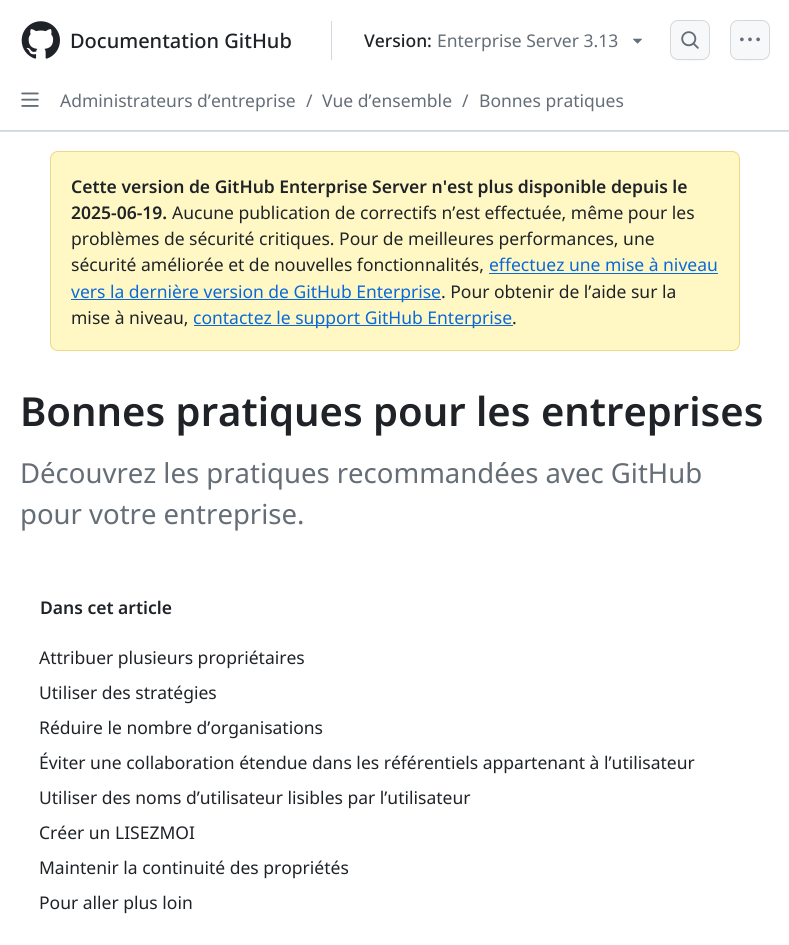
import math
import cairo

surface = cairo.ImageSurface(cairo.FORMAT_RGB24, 789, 945)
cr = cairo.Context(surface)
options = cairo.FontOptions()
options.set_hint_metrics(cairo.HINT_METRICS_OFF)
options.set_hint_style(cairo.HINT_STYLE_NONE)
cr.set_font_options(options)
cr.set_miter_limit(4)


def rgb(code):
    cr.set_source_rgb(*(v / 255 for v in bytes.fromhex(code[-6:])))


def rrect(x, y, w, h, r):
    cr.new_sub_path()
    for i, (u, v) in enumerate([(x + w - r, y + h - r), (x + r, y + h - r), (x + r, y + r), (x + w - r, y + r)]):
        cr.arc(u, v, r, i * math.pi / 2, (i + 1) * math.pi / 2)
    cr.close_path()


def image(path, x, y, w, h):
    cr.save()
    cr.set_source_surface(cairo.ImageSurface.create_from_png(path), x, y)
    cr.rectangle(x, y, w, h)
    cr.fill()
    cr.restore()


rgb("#ffffff")
cr.paint()
rgb("#d8dee4")
cr.rectangle(0, 131, 789, 1)
cr.fill()
rgb("#d0d7de")
cr.rectangle(0, 130, 789, 1)
cr.fill()
image("img/1.png", 21, 21, 39, 38)
cr.rectangle(331, 21, 1, 39)
cr.fill()
image("img/2.png", 633, 38, 9, 6)
rgb("#f6f6f6")
cr.new_path()
cr.move_to(670, 52)
cr.curve_to(670, 63, 683, 61, 690, 61)
cr.curve_to(697, 61, 710, 63, 710, 52)
cr.curve_to(710, 63, 696, 60, 690, 60)
cr.curve_to(684, 60, 670, 63, 670, 52)
cr.close_path()
cr.fill()
rgb("#f6f8fa")
rrect(670, 20, 40, 40, 8)
cr.fill()
rrect(670.5, 20.5, 39, 39, 7.5)
cr.set_source_rgba(0.122, 0.137, 0.157, 0.15)
cr.set_line_width(1)
cr.stroke()
image("img/3.png", 681, 31, 18, 18)
rgb("#f6f6f6")
cr.new_path()
cr.move_to(730, 52)
cr.curve_to(730, 63, 743, 61, 750, 61)
cr.curve_to(757, 61, 770, 63, 770, 52)
cr.curve_to(770, 63, 756, 60, 750, 60)
cr.curve_to(744, 60, 730, 63, 730, 52)
cr.close_path()
cr.fill()
rgb("#f6f8fa")
rrect(730, 20, 40, 40, 8)
cr.fill()
rrect(730.5, 20.5, 39, 39, 7.5)
cr.set_source_rgba(0.122, 0.137, 0.157, 0.15)
cr.stroke()
image("img/4.png", 740, 37, 20, 5)
image("img/5.png", 21, 92, 18, 15)
rgb("#fff8c5")
rrect(50, 151, 690, 200, 8)
cr.fill()
rrect(50.5, 151.5, 689, 199, 7.5)
cr.set_source_rgba(0.831, 0.655, 0.173, 0.4)
cr.stroke()
for x, y, w, h, color in [
    (489, 273, 229, 1, "#0969da"),
    (71, 299, 370, 1, "#0969da"),
    (194, 325, 319, 1, "#0969da"),
]:
    rgb(color)
    cr.rectangle(x, y, w, h)
    cr.fill()
cr.select_font_face("Noto Sans Medium")
cr.set_font_size(20)
rgb("#1f2328")
cr.move_to(70, 48)
cr.show_text("Documentation GitHub")
cr.set_font_size(17.5)
cr.move_to(364, 47)
cr.show_text("Version:")
cr.select_font_face("Noto Sans")
rgb("#656d76")
for x, y, s in [
    (437, 47, "Enterprise Server 3.13"),
    (60, 107, "Administrateurs d’entreprise"),
    (306, 107, "/"),
    (322, 107, "Vue d’ensemble"),
    (462, 107, "/"),
    (479, 107, "Bonnes pratiques"),
]:
    cr.move_to(x, y)
    cr.show_text(s)
cr.select_font_face("Noto Sans SemiBold")
rgb("#1f2328")
cr.move_to(71, 193)
cr.show_text("Cette version de GitHub Enterprise Server n'est plus disponible depuis le")
cr.move_to(71, 219)
cr.show_text("2025-06-19.")
cr.select_font_face("Noto Sans")
for x, y, s in [
    (172, 219, "Aucune publication de correctifs n’est effectuée, même pour les"),
    (71, 245, "problèmes de sécurité critiques. Pour de meilleures performances, une"),
    (71, 271, "sécurité améliorée et de nouvelles fonctionnalités,"),
]:
    cr.move_to(x, y)
    cr.show_text(s)
rgb("#0969da")
cr.move_to(489, 271)
cr.show_text("effectuez une mise à niveau")
cr.move_to(71, 298)
cr.show_text("vers la dernière version de GitHub Enterprise")
rgb("#1f2328")
cr.move_to(441, 298)
cr.show_text(". Pour obtenir de l’aide sur la")
cr.move_to(71, 324)
cr.show_text("mise à niveau,")
rgb("#0969da")
cr.move_to(193, 324)
cr.show_text("contactez le support GitHub Enterprise")
rgb("#1f2328")
cr.move_to(512, 324)
cr.show_text(".")
cr.select_font_face("Noto Sans SemiBold")
cr.set_font_size(40)
cr.move_to(20, 426)
cr.show_text("Bonnes pratiques pour les entreprises")
cr.select_font_face("Noto Sans")
cr.set_font_size(27.5)
rgb("#656d76")
cr.move_to(20, 483)
cr.show_text("Découvrez les pratiques recommandées avec GitHub")
cr.move_to(20, 524)
cr.show_text("pour votre entreprise.")
cr.select_font_face("Noto Sans SemiBold")
cr.set_font_size(17.5)
rgb("#1f2328")
cr.move_to(40, 614)
cr.show_text("Dans cet article")
cr.select_font_face("Noto Sans")
for x, y, s in [
    (39, 664, "Attribuer plusieurs propriétaires"),
    (39, 699, "Utiliser des stratégies"),
    (39, 734, "Réduire le nombre d’organisations"),
    (39, 769, "Éviter une collaboration étendue dans les référentiels appartenant à l’utilisateur"),
    (39, 804, "Utiliser des noms d’utilisateur lisibles par l’utilisateur"),
    (39, 839, "Créer un LISEZMOI"),
    (39, 874, "Maintenir la continuité des propriétés"),
    (39, 909, "Pour aller plus loin"),
]:
    cr.move_to(x, y)
    cr.show_text(s)
surface.write_to_png("page.png")
